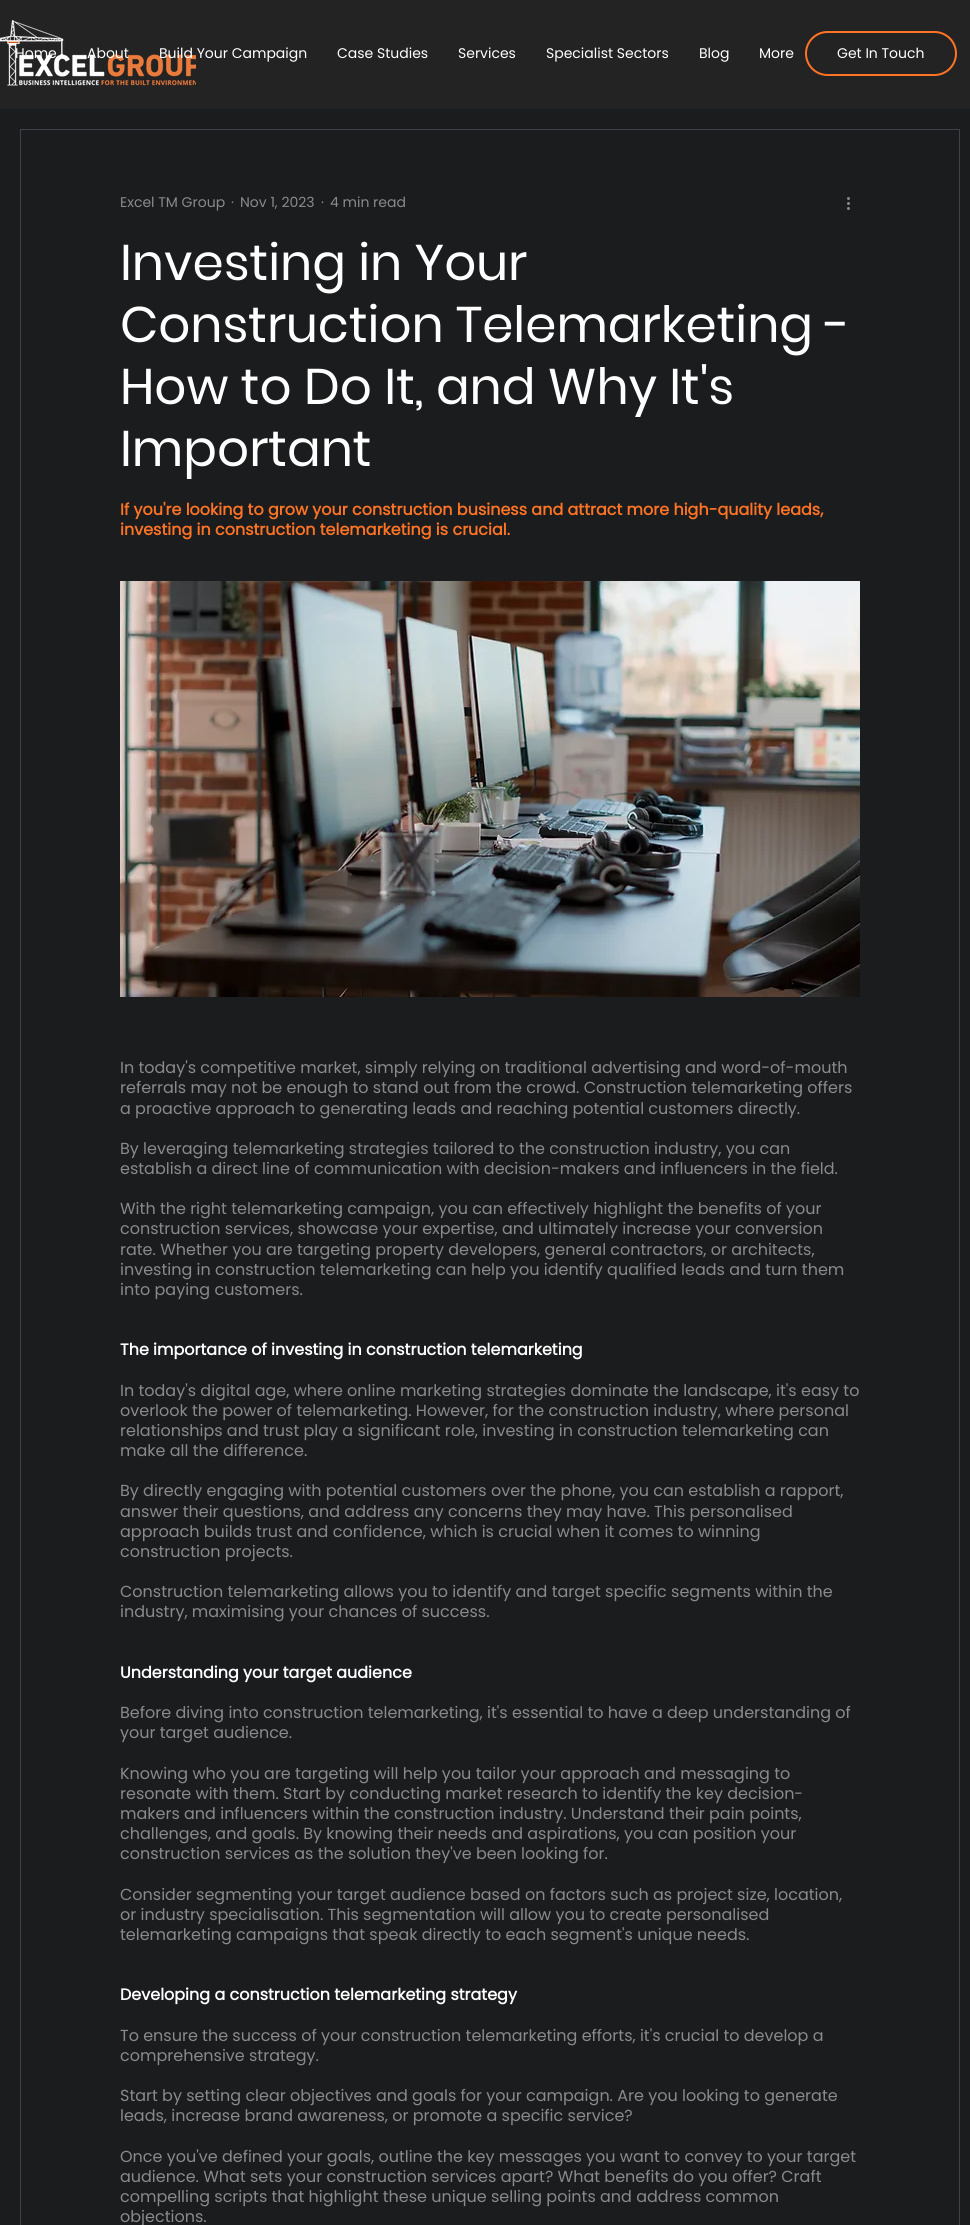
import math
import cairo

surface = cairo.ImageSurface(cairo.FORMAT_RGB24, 970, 2225)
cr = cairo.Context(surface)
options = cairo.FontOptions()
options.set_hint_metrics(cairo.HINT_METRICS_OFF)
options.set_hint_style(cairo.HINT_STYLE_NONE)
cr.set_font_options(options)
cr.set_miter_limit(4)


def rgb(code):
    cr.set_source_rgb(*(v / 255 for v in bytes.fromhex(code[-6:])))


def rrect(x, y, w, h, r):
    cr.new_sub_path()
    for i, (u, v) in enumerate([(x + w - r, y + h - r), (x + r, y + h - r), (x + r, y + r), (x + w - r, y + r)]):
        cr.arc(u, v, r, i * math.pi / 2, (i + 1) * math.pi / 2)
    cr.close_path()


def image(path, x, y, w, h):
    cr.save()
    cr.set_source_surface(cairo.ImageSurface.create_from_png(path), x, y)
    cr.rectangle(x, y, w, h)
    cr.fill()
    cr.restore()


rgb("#1b1c1e")
cr.paint()
rgb("#242323")
cr.rectangle(0, 0, 970, 109)
cr.fill()
image("img/1.png", 0, 20, 196, 66)
rrect(806, 32, 150, 43, 21.5)
rgb("#ff7424")
cr.stroke()
cr.rectangle(20.5, 129.5, 939, 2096)
rgb("#3f4349")
cr.set_line_width(1)
cr.stroke()
image("img/2.png", 847, 197, 3, 13)
image("img/3.png", 120, 581, 740, 416)
cr.select_font_face("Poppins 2")
cr.set_font_size(14)
rgb("#ffffff")
for x, y, s in [
    (15, 58, "Home"),
    (87, 58, "About"),
    (159, 58, "Build Your Campaign"),
    (337, 58, "Case Studies"),
    (458, 58, "Services"),
    (546, 58, "Specialist Sectors"),
    (699, 58, "Blog"),
    (759, 58, "More"),
    (837, 58, "Get In Touch"),
]:
    cr.move_to(x, y)
    cr.show_text(s)
rgb("#8a8a8a")
for x, y, s in [
    (120, 207, "Excel TM Group"),
    (231, 207, "·"),
    (240, 207, "Nov 1, 2023"),
    (321, 207, "·"),
    (330, 207, "4 min read"),
]:
    cr.move_to(x, y)
    cr.show_text(s)
cr.select_font_face("Poppins")
cr.set_font_size(50)
rgb("#ffffff")
for x, y, s in [
    (120, 280, "Investing in Your"),
    (120, 342, "Construction Telemarketing -"),
    (120, 404, "How to Do It, and Why It's"),
    (120, 466, "Important"),
]:
    cr.move_to(x, y)
    cr.show_text(s)
cr.select_font_face("Poppins", cairo.FONT_SLANT_NORMAL, cairo.FONT_WEIGHT_BOLD)
cr.set_font_size(16)
rgb("#ff7424")
cr.move_to(120, 515)
cr.show_text("If you're looking to grow your construction business and attract more high-quality leads,")
cr.move_to(120, 535)
cr.show_text("investing in construction telemarketing is crucial.")
cr.select_font_face("Poppins 2")
rgb("#8a8a8a")
for x, y, s in [
    (120, 1073, "In today's competitive market, simply relying on traditional advertising and word-of-mouth"),
    (120, 1093, "referrals may not be enough to stand out from the crowd. Construction telemarketing offers"),
    (120, 1114, "a proactive approach to generating leads and reaching potential customers directly."),
    (120, 1154, "By leveraging telemarketing strategies tailored to the construction industry, you can"),
    (120, 1174, "establish a direct line of communication with decision-makers and influencers in the field."),
    (120, 1214, "With the right telemarketing campaign, you can effectively highlight the benefits of your"),
    (120, 1234, "construction services, showcase your expertise, and ultimately increase your conversion"),
    (120, 1255, "rate. Whether you are targeting property developers, general contractors, or architects,"),
    (120, 1275, "investing in construction telemarketing can help you identify qualified leads and turn them"),
    (120, 1295, "into paying customers."),
]:
    cr.move_to(x, y)
    cr.show_text(s)
cr.select_font_face("Poppins", cairo.FONT_SLANT_NORMAL, cairo.FONT_WEIGHT_BOLD)
rgb("#ffffff")
cr.move_to(120, 1355)
cr.show_text("The importance of investing in construction telemarketing")
cr.select_font_face("Poppins 2")
rgb("#8a8a8a")
for x, y, s in [
    (120, 1396, "In today's digital age, where online marketing strategies dominate the landscape, it's easy to"),
    (120, 1416, "overlook the power of telemarketing. However, for the construction industry, where personal"),
    (120, 1436, "relationships and trust play a significant role, investing in construction telemarketing can"),
    (120, 1456, "make all the difference."),
    (120, 1496, "By directly engaging with potential customers over the phone, you can establish a rapport,"),
    (120, 1517, "answer their questions, and address any concerns they may have. This personalised"),
    (120, 1537, "approach builds trust and confidence, which is crucial when it comes to winning"),
    (120, 1557, "construction projects."),
    (120, 1597, "Construction telemarketing allows you to identify and target specific segments within the"),
    (120, 1617, "industry, maximising your chances of success."),
]:
    cr.move_to(x, y)
    cr.show_text(s)
cr.select_font_face("Poppins", cairo.FONT_SLANT_NORMAL, cairo.FONT_WEIGHT_BOLD)
rgb("#ffffff")
cr.move_to(120, 1678)
cr.show_text("Understanding your target audience")
cr.select_font_face("Poppins 2")
rgb("#8a8a8a")
for x, y, s in [
    (120, 1718, "Before diving into construction telemarketing, it's essential to have a deep understanding of"),
    (120, 1738, "your target audience."),
    (120, 1779, "Knowing who you are targeting will help you tailor your approach and messaging to"),
    (120, 1799, "resonate with them. Start by conducting market research to identify the key decision-"),
    (120, 1819, "makers and influencers within the construction industry. Understand their pain points,"),
    (120, 1839, "challenges, and goals. By knowing their needs and aspirations, you can position your"),
    (120, 1859, "construction services as the solution they've been looking for."),
    (120, 1900, "Consider segmenting your target audience based on factors such as project size, location,"),
    (120, 1920, "or industry specialisation. This segmentation will allow you to create personalised"),
    (120, 1940, "telemarketing campaigns that speak directly to each segment's unique needs."),
]:
    cr.move_to(x, y)
    cr.show_text(s)
cr.select_font_face("Poppins", cairo.FONT_SLANT_NORMAL, cairo.FONT_WEIGHT_BOLD)
rgb("#ffffff")
cr.move_to(120, 2000)
cr.show_text("Developing a construction telemarketing strategy")
cr.select_font_face("Poppins 2")
rgb("#8a8a8a")
for x, y, s in [
    (120, 2041, "To ensure the success of your construction telemarketing efforts, it's crucial to develop a"),
    (120, 2061, "comprehensive strategy."),
    (120, 2101, "Start by setting clear objectives and goals for your campaign. Are you looking to generate"),
    (120, 2121, "leads, increase brand awareness, or promote a specific service?"),
    (120, 2162, "Once you've defined your goals, outline the key messages you want to convey to your target"),
    (120, 2182, "audience. What sets your construction services apart? What benefits do you offer? Craft"),
    (120, 2202, "compelling scripts that highlight these unique selling points and address common"),
    (120, 2222, "objections."),
]:
    cr.move_to(x, y)
    cr.show_text(s)
surface.write_to_png("page.png")
